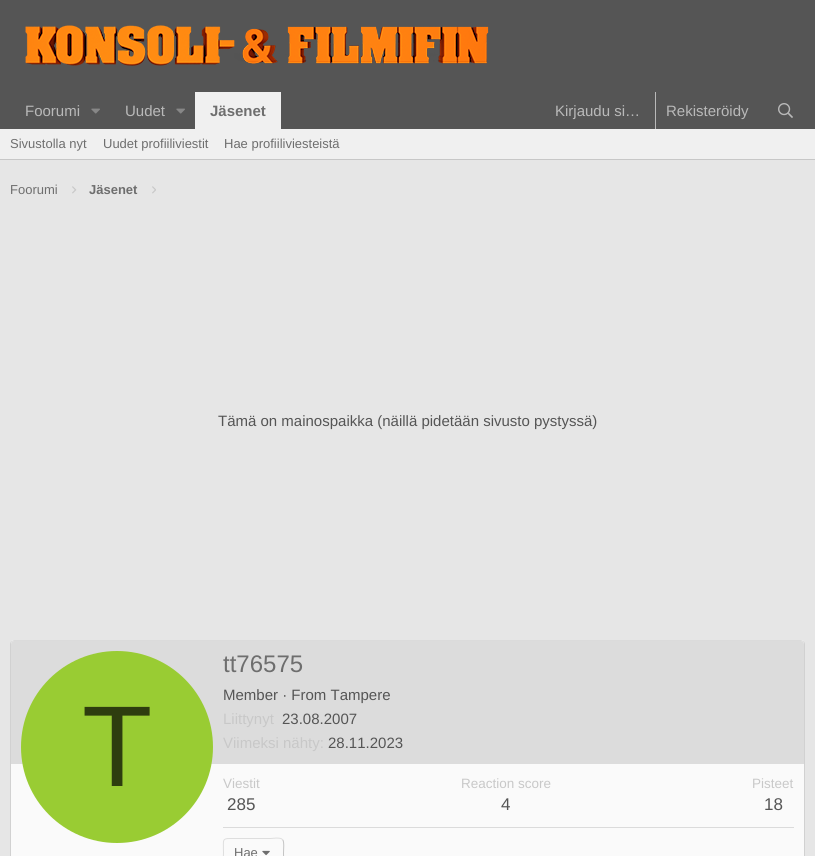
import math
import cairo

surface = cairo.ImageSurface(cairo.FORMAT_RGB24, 815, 856)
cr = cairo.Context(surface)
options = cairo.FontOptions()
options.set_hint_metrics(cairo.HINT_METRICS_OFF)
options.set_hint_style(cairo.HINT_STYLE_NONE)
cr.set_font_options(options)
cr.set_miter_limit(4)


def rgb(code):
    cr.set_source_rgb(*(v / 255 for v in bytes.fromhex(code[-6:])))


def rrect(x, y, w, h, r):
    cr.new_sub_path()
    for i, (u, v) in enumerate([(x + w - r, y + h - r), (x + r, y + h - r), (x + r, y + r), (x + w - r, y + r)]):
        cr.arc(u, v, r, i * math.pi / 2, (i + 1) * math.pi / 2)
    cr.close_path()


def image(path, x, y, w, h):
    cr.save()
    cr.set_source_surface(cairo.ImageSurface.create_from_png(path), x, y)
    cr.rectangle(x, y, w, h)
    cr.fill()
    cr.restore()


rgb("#e6e6e6")
cr.paint()
rgb("#555555")
cr.rectangle(0, 0, 815, 129)
cr.fill()
image("img/1.png", 25, 25, 464, 41)
image("img/2.png", 91, 108, 9, 6)
image("img/2.png", 176, 108, 9, 6)
rgb("#f0f0f0")
cr.rectangle(195, 92, 86, 37)
cr.fill()
rgb("#b9b9b9")
cr.rectangle(655, 92, 1, 37)
cr.fill()
image("img/3.png", 778, 103, 15, 15)
rgb("#f0f0f0")
cr.rectangle(0, 129, 815, 30)
cr.fill()
rgb("#c7c7c7")
cr.rectangle(0, 159, 815, 1)
cr.fill()
image("img/4.png", 72, 186, 5, 8)
image("img/5.png", 152, 186, 4, 8)
rgb("#fafafa")
rrect(10, 640, 795, 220, 4)
cr.fill()
cr.new_path()
cr.move_to(11.5, 641.5)
cr.line_to(14, 640.5)
cr.line_to(801, 640.5)
cr.line_to(803.5, 641.5)
rgb("#dbdbdb")
cr.set_line_width(1)
cr.stroke()
cr.new_path()
cr.move_to(803.5, 641.5)
cr.curve_to(804, 642, 804.5, 643, 804.5, 644)
cr.line_to(804.5, 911)
cr.curve_to(804.5, 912, 804, 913, 803.5, 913.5)
rgb("#d1d1d1")
cr.stroke()
cr.new_path()
cr.move_to(11.5, 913.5)
cr.curve_to(11, 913, 10.5, 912, 10.5, 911)
cr.line_to(10.5, 644)
cr.curve_to(10.5, 643, 11, 642, 11.5, 641.5)
cr.stroke()
rgb("#dcdcdc")
cr.new_path()
cr.move_to(14, 641)
cr.line_to(801, 641)
cr.curve_to(802.5, 641, 804, 642.5, 804, 644)
cr.line_to(804, 764)
cr.line_to(11, 764)
cr.line_to(11, 644)
cr.curve_to(11, 642.5, 12.5, 641, 14, 641)
cr.close_path()
cr.fill()
rgb("#99cc33")
cr.arc(117, 747, 96, 0, 2 * math.pi)
cr.fill()
rgb("#dbdbdb")
cr.rectangle(223, 827, 571, 1)
cr.fill()
cr.new_path()
cr.move_to(282.5, 839.5)
cr.curve_to(284.5, 841.5, 283.5, 850, 283.5, 853)
cr.curve_to(283.5, 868.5, 286, 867.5, 271, 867.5)
cr.line_to(236, 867.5)
cr.curve_to(235, 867.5, 227, 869, 224.5, 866.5)
rgb("#c4c4c4")
cr.stroke()
cr.new_path()
cr.move_to(224.5, 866.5)
cr.curve_to(222.5, 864.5, 223.5, 856, 223.5, 853)
cr.curve_to(223.5, 837.5, 221, 838.5, 236, 838.5)
cr.line_to(271, 838.5)
cr.curve_to(272, 838.5, 280, 837, 282.5, 839.5)
rgb("#dedede")
cr.stroke()
image("img/6.png", 262, 850, 8, 6)
cr.select_font_face("Liberation Sans")
cr.set_font_size(15)
rgb("#b9b9b9")
cr.move_to(25, 116)
cr.show_text("Foorumi")
cr.move_to(125, 116)
cr.show_text("Uudet")
cr.select_font_face("Liberation Sans", cairo.FONT_SLANT_NORMAL, cairo.FONT_WEIGHT_BOLD)
rgb("#6e6e6e")
cr.move_to(210, 116)
cr.show_text("Jäsenet")
cr.select_font_face("Liberation Sans")
rgb("#b9b9b9")
cr.move_to(555, 116)
cr.show_text("Kirjaudu si…")
cr.move_to(666, 116)
cr.show_text("Rekisteröidy")
cr.set_font_size(13)
rgb("#6e6e6e")
for x, y, s in [
    (10, 148, "Sivustolla nyt"),
    (103, 148, "Uudet profiiliviestit"),
    (224, 148, "Hae profiiliviesteistä"),
    (10, 194, "Foorumi"),
]:
    cr.move_to(x, y)
    cr.show_text(s)
cr.select_font_face("Liberation Sans", cairo.FONT_SLANT_NORMAL, cairo.FONT_WEIGHT_BOLD)
cr.move_to(89, 194)
cr.show_text("Jäsenet")
cr.select_font_face("Liberation Sans")
cr.set_font_size(15)
rgb("#555555")
cr.move_to(218, 426)
cr.show_text("Tämä on mainospaikka (näillä pidetään sivusto pystyssä)")
cr.set_font_size(115)
rgb("#2e3d0f")
cr.move_to(82, 786)
cr.show_text("T")
cr.set_font_size(24)
rgb("#6e6e6e")
cr.move_to(223, 672)
cr.show_text("tt76575")
cr.set_font_size(15)
rgb("#555555")
cr.move_to(223, 700)
cr.show_text("Member · From Tampere")
rgb("#c8c8c8")
cr.move_to(223, 724)
cr.show_text("Liittynyt")
rgb("#555555")
cr.move_to(282, 724)
cr.show_text("23.08.2007")
rgb("#c8c8c8")
cr.move_to(223, 748)
cr.show_text("Viimeksi nähty:")
rgb("#555555")
cr.move_to(328, 748)
cr.show_text("28.11.2023")
cr.set_font_size(13.5)
rgb("#c8c8c8")
cr.move_to(223, 788)
cr.show_text("Viestit")
cr.set_font_size(17)
rgb("#555555")
cr.move_to(227, 810)
cr.show_text("285")
cr.set_font_size(13.5)
rgb("#c8c8c8")
cr.move_to(461, 788)
cr.show_text("Reaction score")
cr.set_font_size(17)
rgb("#555555")
cr.move_to(501, 810)
cr.show_text("4")
cr.set_font_size(13.5)
rgb("#c8c8c8")
cr.move_to(752, 788)
cr.show_text("Pisteet")
cr.set_font_size(17)
rgb("#555555")
cr.move_to(764, 810)
cr.show_text("18")
cr.set_font_size(13)
rgb("#6e6e6e")
cr.move_to(234, 857)
cr.show_text("Hae")
surface.write_to_png("page.png")
